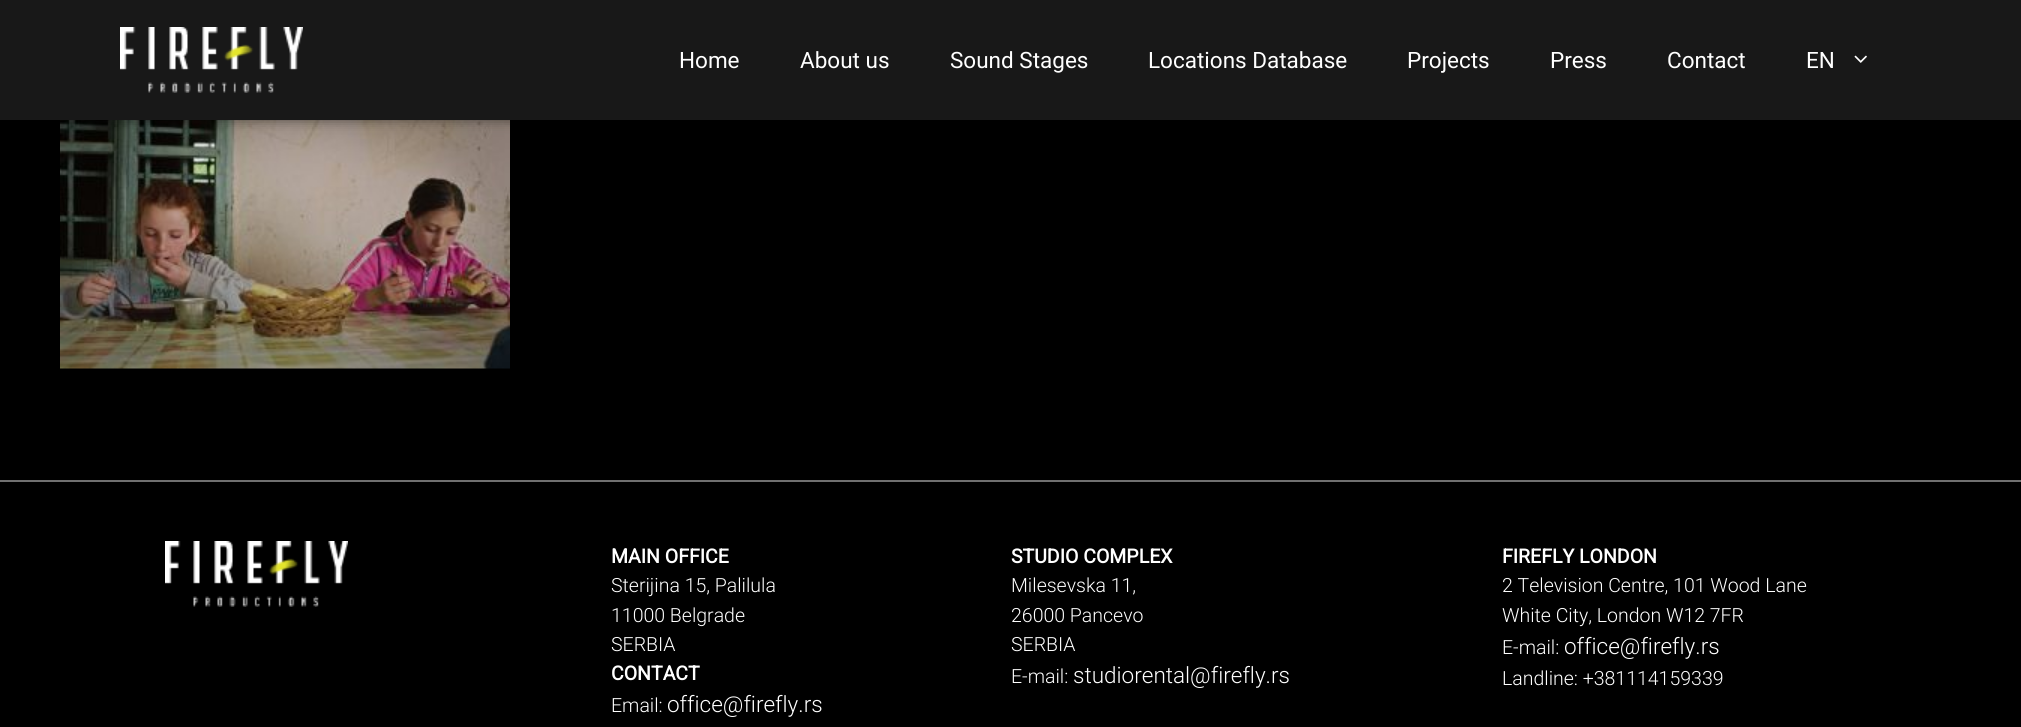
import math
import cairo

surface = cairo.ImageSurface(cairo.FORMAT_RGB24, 2021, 727)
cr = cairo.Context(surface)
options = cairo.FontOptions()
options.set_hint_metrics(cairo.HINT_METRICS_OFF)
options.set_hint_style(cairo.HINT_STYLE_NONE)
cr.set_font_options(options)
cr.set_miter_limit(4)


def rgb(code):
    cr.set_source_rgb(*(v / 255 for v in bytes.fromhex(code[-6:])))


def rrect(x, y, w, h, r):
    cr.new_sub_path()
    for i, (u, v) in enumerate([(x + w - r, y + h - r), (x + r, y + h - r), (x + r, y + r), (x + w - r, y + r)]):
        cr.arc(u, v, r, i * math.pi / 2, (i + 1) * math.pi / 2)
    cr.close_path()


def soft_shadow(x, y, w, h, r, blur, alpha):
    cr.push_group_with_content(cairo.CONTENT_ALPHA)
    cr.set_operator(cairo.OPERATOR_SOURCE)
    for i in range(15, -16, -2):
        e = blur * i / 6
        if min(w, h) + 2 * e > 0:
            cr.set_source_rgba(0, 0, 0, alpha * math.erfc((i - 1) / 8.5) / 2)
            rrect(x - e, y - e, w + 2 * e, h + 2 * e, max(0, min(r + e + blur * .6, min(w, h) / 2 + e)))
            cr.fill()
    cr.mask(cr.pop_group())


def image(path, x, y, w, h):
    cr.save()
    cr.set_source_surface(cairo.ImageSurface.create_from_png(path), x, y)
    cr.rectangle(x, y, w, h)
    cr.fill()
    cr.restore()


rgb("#000000")
cr.paint()
image("img/3.png", 60, 120, 450, 249)
soft_shadow(0, 0, 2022, 120, 0, 6, 0.45)
rgb("#181818")
cr.rectangle(0, 0, 2021, 120)
cr.fill()
image("img/1.png", 120, 27, 183, 66)
image("img/2.png", 1854, 55, 13, 8)
rgb("#707070")
cr.rectangle(0, 480, 2021, 2)
cr.fill()
image("img/4.png", 165, 541, 183, 66)
cr.select_font_face("Roboto")
cr.set_font_size(22.5)
rgb("#ffffff")
for x, y, s in [
    (679, 68, "Home"),
    (800, 68, "About us"),
    (950, 68, "Sound Stages"),
    (1148, 68, "Locations Database"),
    (1407, 68, "Projects"),
    (1550, 68, "Press"),
    (1667, 68, "Contact"),
    (1806, 68, "EN"),
]:
    cr.move_to(x, y)
    cr.show_text(s)
cr.select_font_face("Roboto", cairo.FONT_SLANT_NORMAL, cairo.FONT_WEIGHT_BOLD)
cr.set_font_size(19.5)
cr.move_to(611, 563)
cr.show_text("MAIN OFFICE")
cr.select_font_face("Roboto Light")
for x, y, s in [
    (611, 592, "Sterijina 15, Palilula"),
    (611, 622, "11000 Belgrade"),
    (611, 651, "SERBIA"),
]:
    cr.move_to(x, y)
    cr.show_text(s)
cr.select_font_face("Roboto", cairo.FONT_SLANT_NORMAL, cairo.FONT_WEIGHT_BOLD)
cr.move_to(611, 680)
cr.show_text("CONTACT")
cr.select_font_face("Roboto Light")
cr.move_to(611, 712)
cr.show_text("Email:")
cr.set_font_size(22.5)
cr.move_to(667, 712)
cr.show_text("office@firefly.rs")
cr.select_font_face("Roboto", cairo.FONT_SLANT_NORMAL, cairo.FONT_WEIGHT_BOLD)
cr.set_font_size(19.5)
cr.move_to(1011, 563)
cr.show_text("STUDIO COMPLEX")
cr.select_font_face("Roboto Light")
for x, y, s in [
    (1011, 592, "Milesevska 11,"),
    (1011, 622, "26000 Pancevo"),
    (1011, 651, "SERBIA"),
    (1011, 683, "E-mail:"),
]:
    cr.move_to(x, y)
    cr.show_text(s)
cr.set_font_size(22.5)
cr.move_to(1073, 683)
cr.show_text("studiorental@firefly.rs")
cr.select_font_face("Roboto", cairo.FONT_SLANT_NORMAL, cairo.FONT_WEIGHT_BOLD)
cr.set_font_size(19.5)
cr.move_to(1502, 563)
cr.show_text("FIREFLY LONDON")
cr.select_font_face("Roboto Light")
for x, y, s in [
    (1502, 592, "2 Television Centre, 101 Wood Lane"),
    (1502, 622, "White City, London W12 7FR"),
    (1502, 654, "E-mail:"),
]:
    cr.move_to(x, y)
    cr.show_text(s)
cr.set_font_size(22.5)
cr.move_to(1564, 654)
cr.show_text("office@firefly.rs")
cr.set_font_size(19.5)
cr.move_to(1502, 685)
cr.show_text("Landline: +381114159339")
surface.write_to_png("page.png")
